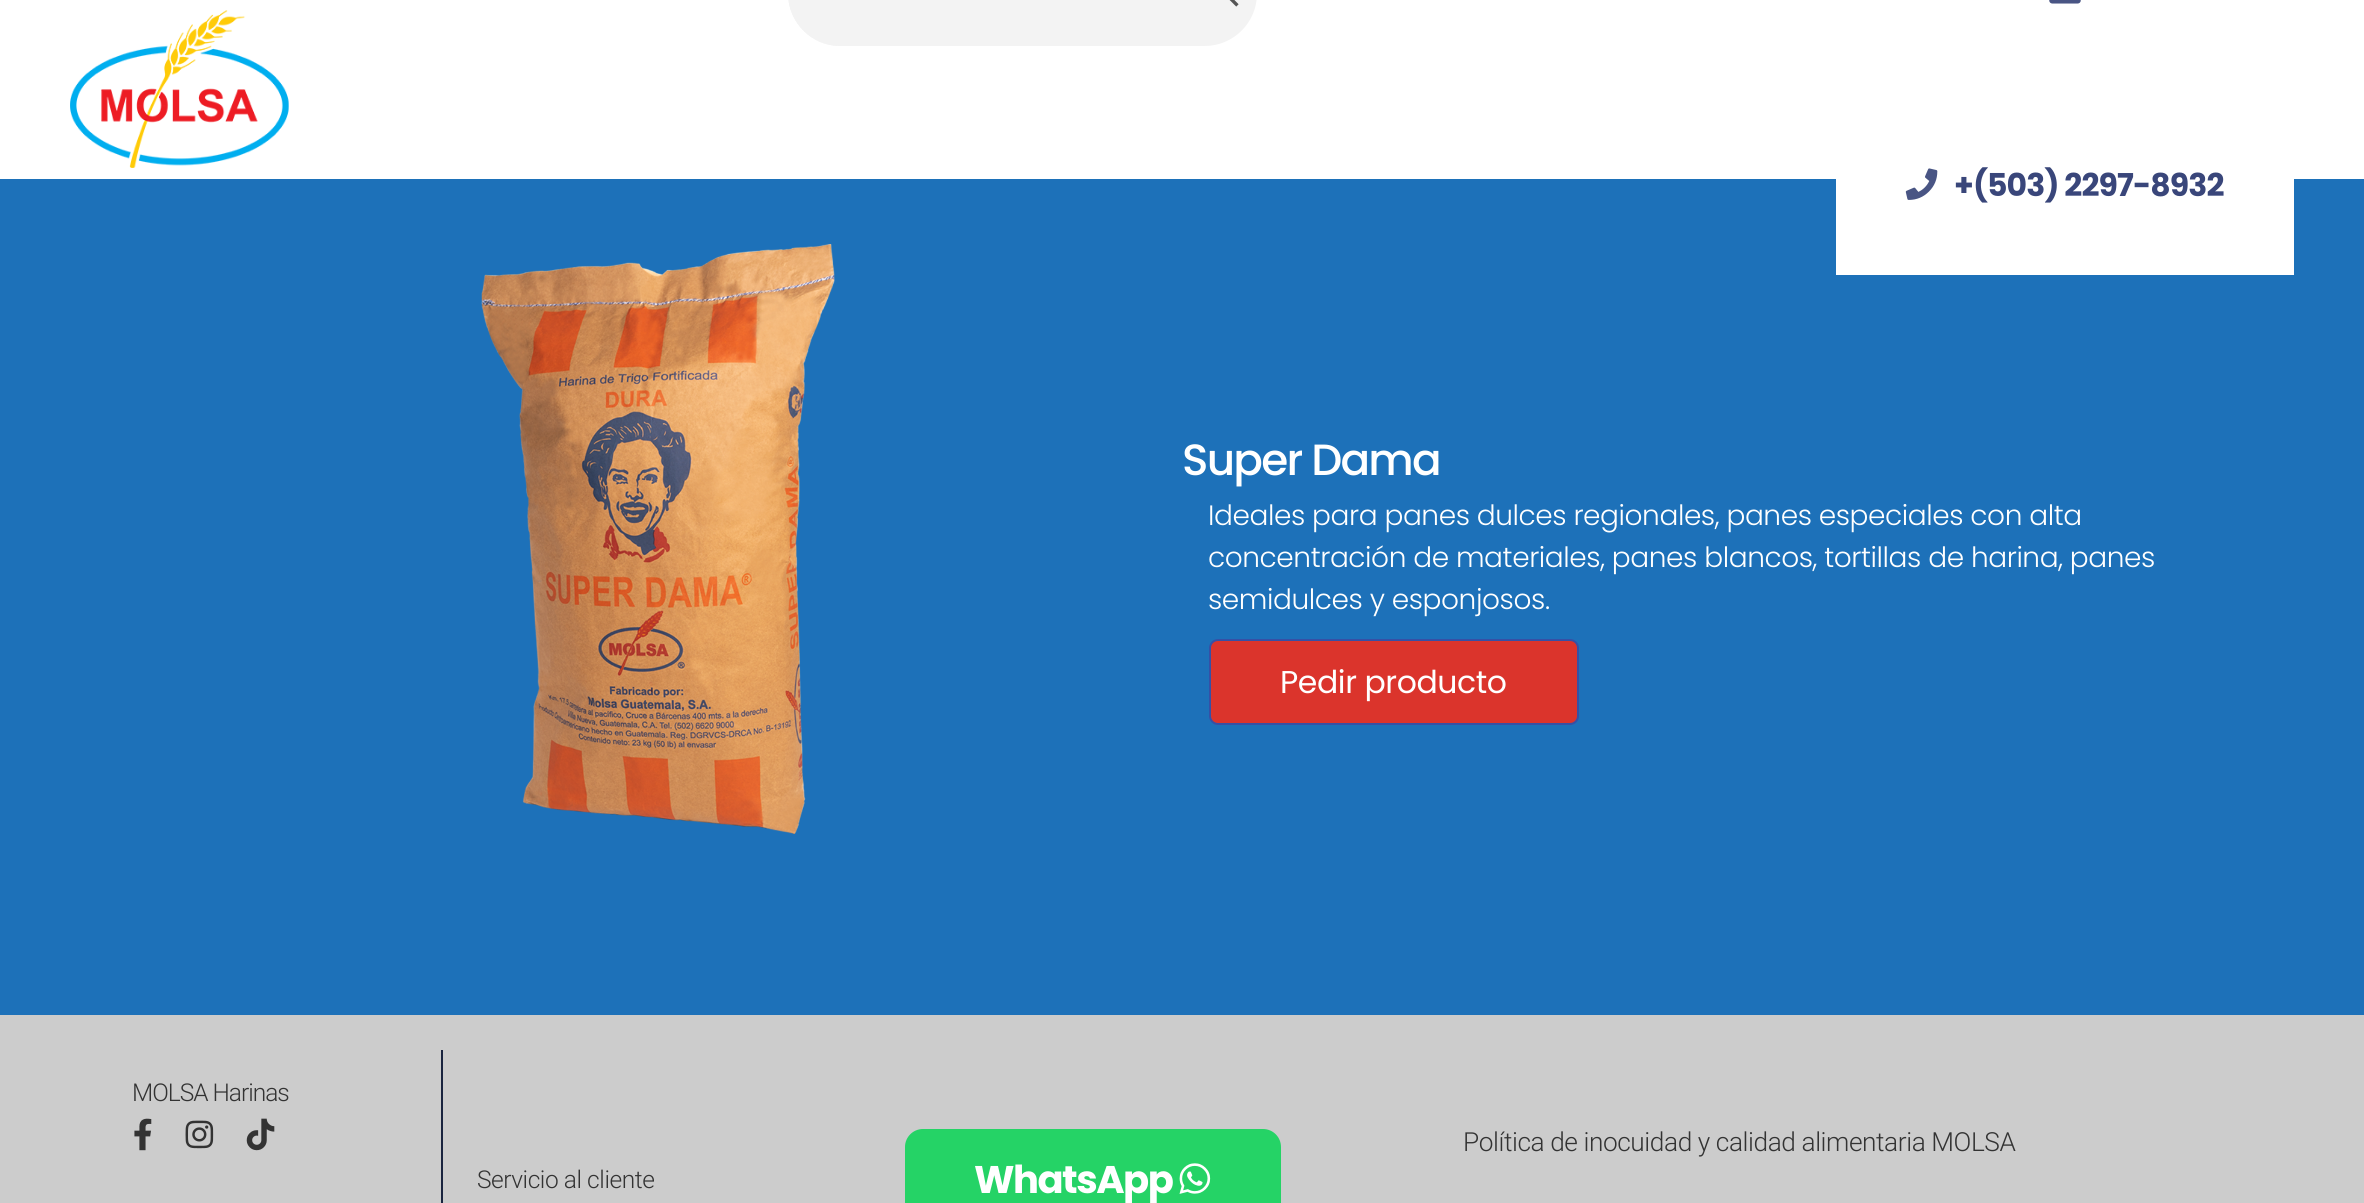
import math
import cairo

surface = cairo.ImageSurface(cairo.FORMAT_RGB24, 2364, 1203)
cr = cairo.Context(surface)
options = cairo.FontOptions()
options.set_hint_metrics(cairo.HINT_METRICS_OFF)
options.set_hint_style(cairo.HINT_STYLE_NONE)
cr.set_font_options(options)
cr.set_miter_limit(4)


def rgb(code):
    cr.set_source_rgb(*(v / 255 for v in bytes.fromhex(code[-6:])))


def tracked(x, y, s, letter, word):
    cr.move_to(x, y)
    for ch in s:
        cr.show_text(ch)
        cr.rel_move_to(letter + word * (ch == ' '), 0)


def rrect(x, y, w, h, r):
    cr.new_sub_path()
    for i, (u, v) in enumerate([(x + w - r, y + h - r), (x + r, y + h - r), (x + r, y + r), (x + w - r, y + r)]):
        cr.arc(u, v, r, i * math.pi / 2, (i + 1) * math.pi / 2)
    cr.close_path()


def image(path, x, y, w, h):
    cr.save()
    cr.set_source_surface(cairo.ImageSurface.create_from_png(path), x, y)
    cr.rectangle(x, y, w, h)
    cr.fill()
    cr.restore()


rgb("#1d71b9")
cr.paint()
rgb("#ffffff")
cr.rectangle(0, 0, 2364, 179)
cr.fill()
image("img/1.png", 70, 10, 219, 158)
rgb("#f3f3f3")
cr.new_path()
cr.move_to(840.5, -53)
cr.line_to(1194, -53)
cr.line_to(1194, 46)
cr.line_to(840.5, 46)
cr.curve_to(811.5, 46, 788, 22.5, 788, -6.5)
cr.line_to(788, -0.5)
cr.curve_to(788, -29.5, 811.5, -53, 840.5, -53)
cr.close_path()
cr.fill()
cr.set_fill_rule(cairo.FILL_RULE_EVEN_ODD)
cr.new_path()
cr.move_to(840, -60)
cr.line_to(1194, -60)
cr.line_to(1194, 46)
cr.line_to(840, 46)
cr.curve_to(811, 46, 788, 22, 788, -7)
cr.curve_to(788, -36, 811, -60, 840, -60)
cr.close_path()
cr.move_to(840, -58)
cr.line_to(1194, -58)
cr.line_to(1194, 44)
cr.line_to(840, 44)
cr.curve_to(812, 44, 789, 21, 789, -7)
cr.curve_to(789, -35, 812, -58, 840, -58)
cr.close_path()
cr.fill()
cr.new_path()
cr.move_to(1194, -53)
cr.line_to(1204.5, -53)
cr.curve_to(1233.5, -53, 1257, -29.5, 1257, -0.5)
cr.line_to(1257, -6.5)
cr.curve_to(1257, 22.5, 1233.5, 46, 1204.5, 46)
cr.line_to(1194, 46)
cr.close_path()
cr.fill()
image("img/2.png", 1229, 0, 10, 7)
image("img/3.png", 2049, 0, 32, 4)
rgb("#ffffff")
cr.rectangle(1836, 179, 458, 96)
cr.fill()
image("img/4.png", 1905, 168, 33, 32)
image("img/5.png", 481, 244, 354, 590)
rgb("#db342c")
rrect(1210, 640, 368, 84, 8)
cr.fill_preserve()
rgb("#3650a5")
cr.stroke()
rgb("#cccccc")
cr.rectangle(0, 1015, 2364, 188)
cr.fill()
image("img/6.png", 134, 1118, 18, 33)
image("img/7.png", 185, 1120, 29, 29)
image("img/8.png", 246, 1118, 29, 33)
rgb("#1a243f")
cr.rectangle(441, 1050, 2, 153)
cr.fill()
rgb("#25d366")
rrect(905, 1129, 376, 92, 18)
cr.fill()
image("img/9.png", 1179, 1163, 32, 31)
cr.select_font_face("Poppins", cairo.FONT_SLANT_NORMAL, cairo.FONT_WEIGHT_BOLD)
cr.set_font_size(31.5)
rgb("#39467a")
tracked(1954, 196, "+(503) 2297-8932", -0.9, 0)
cr.select_font_face("Poppins Medium")
cr.set_font_size(43.75)
rgb("#ffffff")
tracked(1182, 475, "Super Dama", -1.75, 0)
cr.select_font_face("Poppins Light")
cr.set_font_size(28)
for x, y, s in [
    (1208, 525, "Ideales para panes dulces regionales, panes especiales con alta"),
    (1208, 567, "concentración de materiales, panes blancos, tortillas de harina, panes"),
    (1208, 609, "semidulces y esponjosos."),
]:
    tracked(x, y, s, -0.42, 0)
cr.select_font_face("Poppins")
cr.set_font_size(31.5)
tracked(1280, 693, "Pedir producto", -0.42, 0)
cr.select_font_face("Roboto Light")
cr.set_font_size(24.5)
rgb("#333333")
tracked(132, 1101, "MOLSA Harinas", -1, 0)
cr.set_font_size(26.25)
tracked(1463, 1151, "Política de inocuidad y calidad alimentaria MOLSA", -0.42, 0)
cr.set_font_size(24.5)
tracked(477, 1188, "Servicio al cliente", -0.42, 0)
cr.select_font_face("Poppins", cairo.FONT_SLANT_NORMAL, cairo.FONT_WEIGHT_BOLD)
cr.set_font_size(38.5)
rgb("#ffffff")
tracked(974, 1193, "WhatsApp", -1.5, 0)
surface.write_to_png("page.png")
